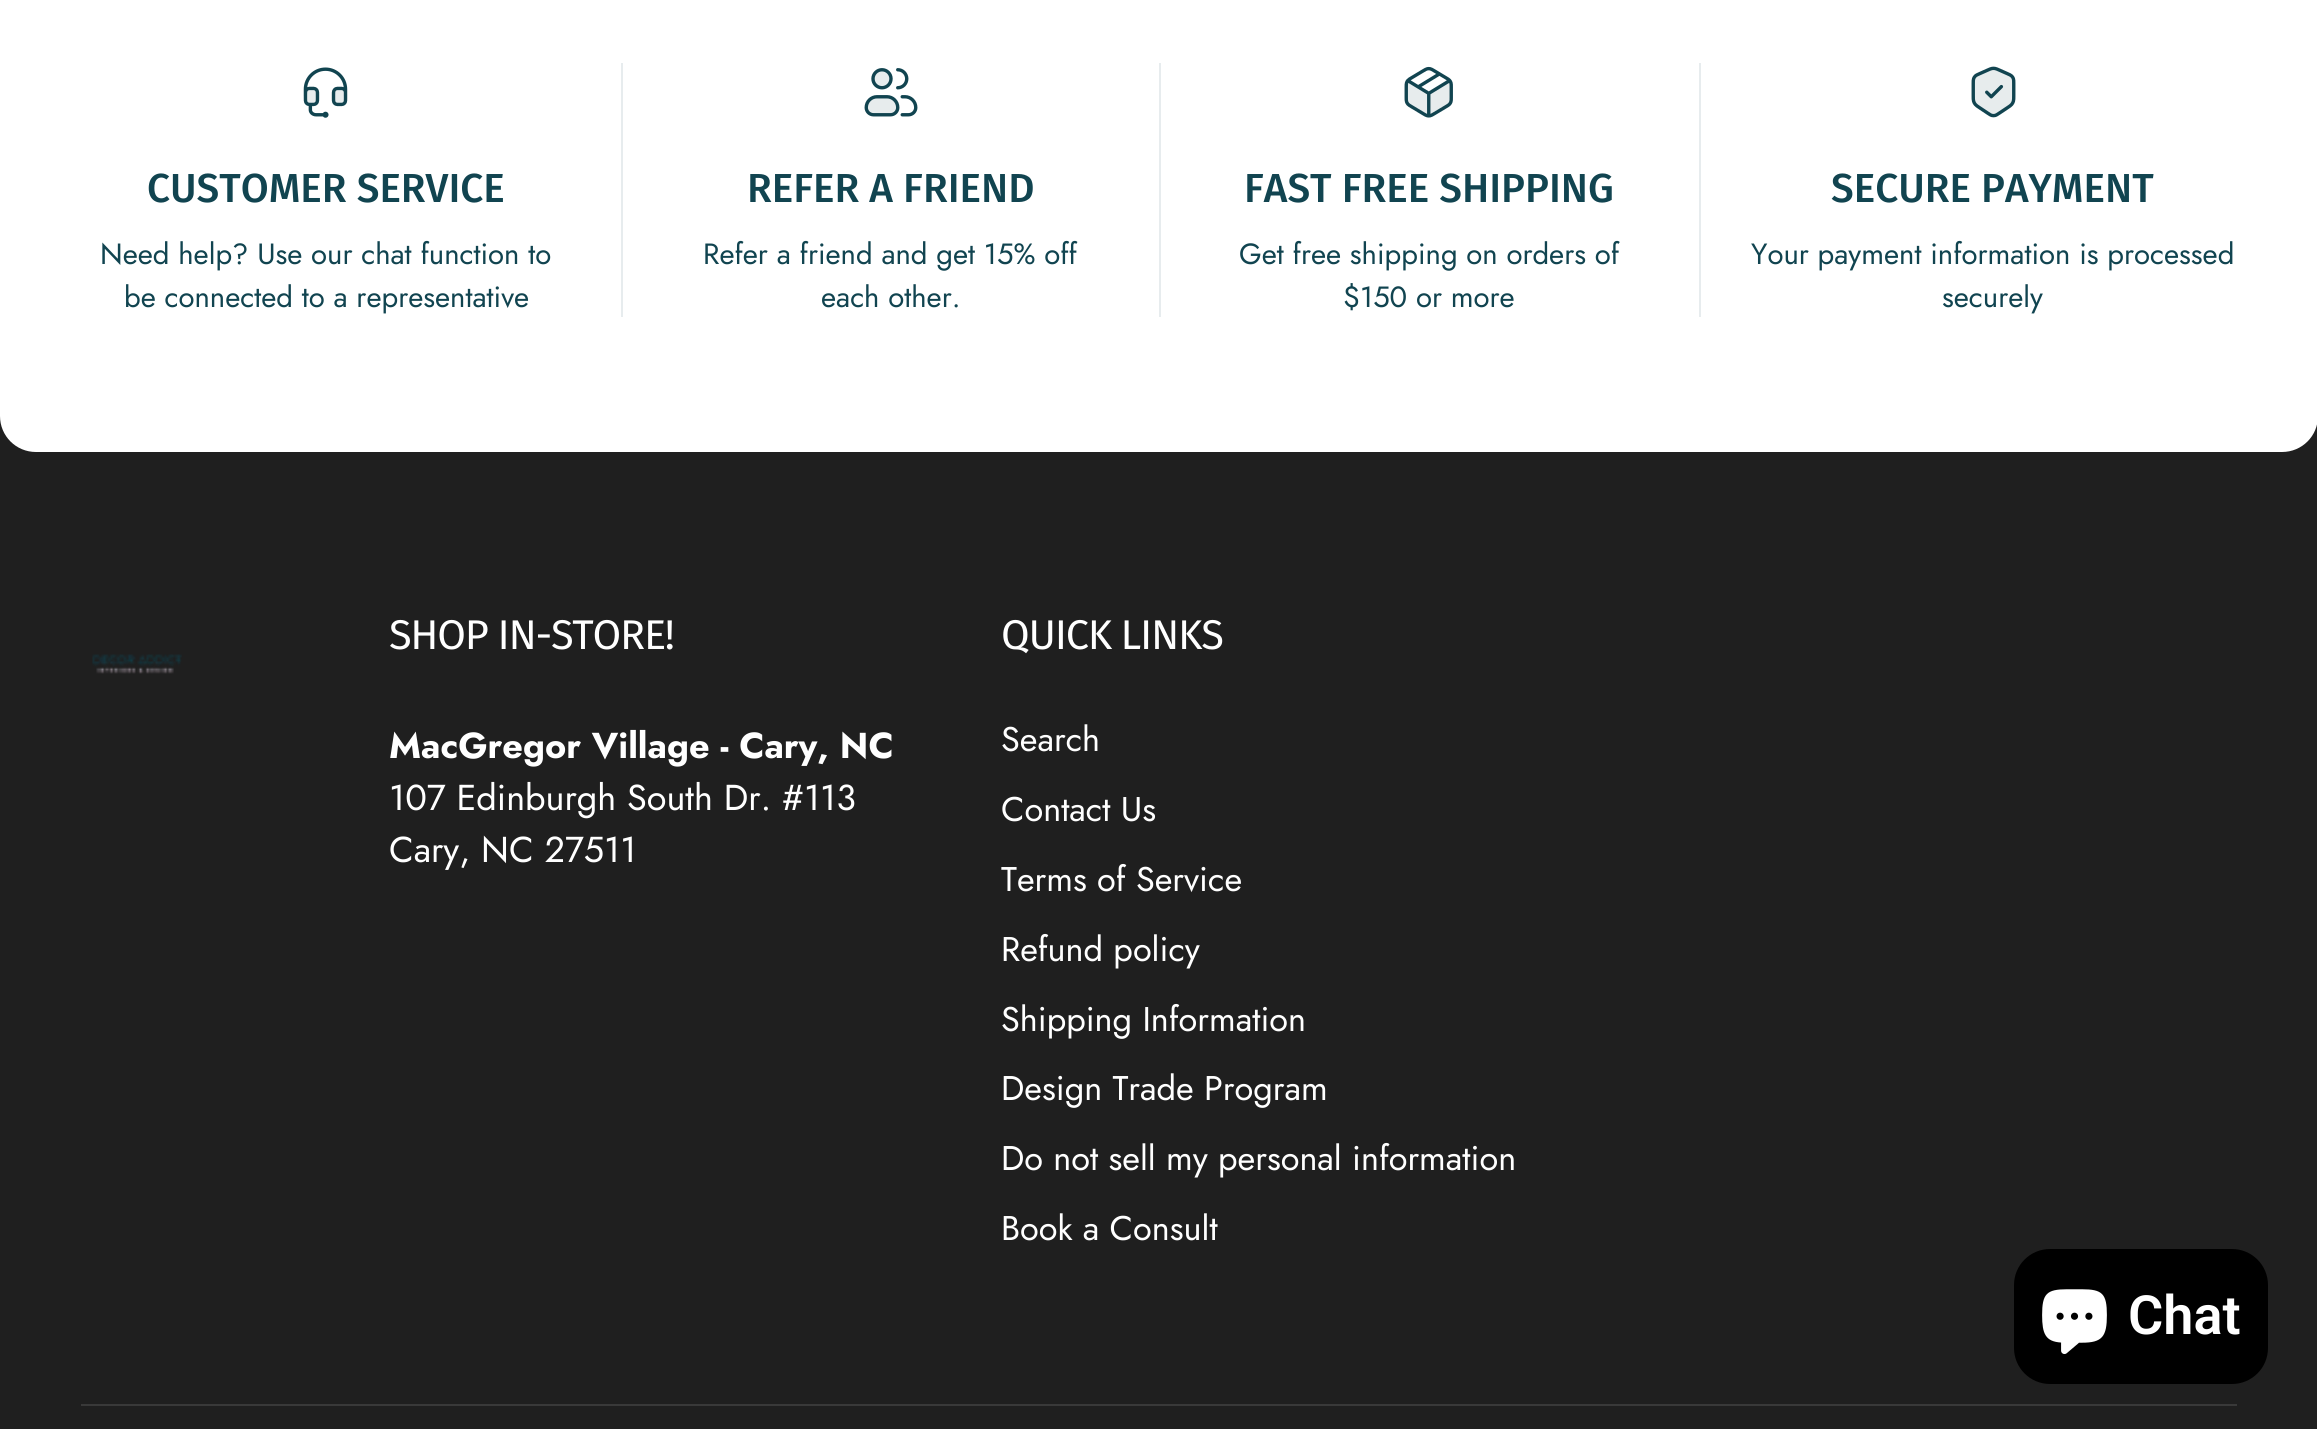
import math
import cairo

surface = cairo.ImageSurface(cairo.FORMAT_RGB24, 2317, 1429)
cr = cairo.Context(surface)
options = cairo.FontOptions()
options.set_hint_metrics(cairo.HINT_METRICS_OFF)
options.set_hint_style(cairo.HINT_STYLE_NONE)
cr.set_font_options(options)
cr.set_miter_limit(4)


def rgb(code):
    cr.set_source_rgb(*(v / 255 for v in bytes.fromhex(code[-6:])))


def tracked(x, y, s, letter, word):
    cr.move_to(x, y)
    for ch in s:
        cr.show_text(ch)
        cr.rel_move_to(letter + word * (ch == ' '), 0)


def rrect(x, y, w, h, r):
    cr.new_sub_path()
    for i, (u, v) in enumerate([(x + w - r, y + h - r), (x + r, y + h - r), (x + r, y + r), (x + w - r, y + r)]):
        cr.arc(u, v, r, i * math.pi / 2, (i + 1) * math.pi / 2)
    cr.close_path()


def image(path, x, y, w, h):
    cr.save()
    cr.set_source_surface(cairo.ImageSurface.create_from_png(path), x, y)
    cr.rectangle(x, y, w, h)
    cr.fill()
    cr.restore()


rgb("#1f1f1f")
cr.paint()
rgb("#ffffff")
cr.new_path()
cr.move_to(0, -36)
cr.line_to(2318, -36)
cr.line_to(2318, 416)
cr.curve_to(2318, 436, 2302, 452, 2282, 452)
cr.line_to(36, 452)
cr.curve_to(16, 452, 0, 436, 0, 416)
cr.close_path()
cr.fill()
image("img/1.png", 303, 67, 45, 51)
rgb("#e7ecee")
cr.rectangle(621, 63, 2, 254)
cr.fill()
image("img/2.png", 864, 68, 54, 49)
cr.rectangle(1159, 63, 2, 254)
cr.fill()
image("img/3.png", 1404, 66, 49, 52)
cr.rectangle(1699, 63, 2, 254)
cr.fill()
image("img/4.png", 1971, 66, 45, 52)
image("img/5.png", 92, 654, 90, 20)
rgb("#393939")
cr.rectangle(81, 1404, 2156, 2)
cr.fill()
rgb("#000000")
rrect(2014, 1249, 254, 135, 36)
cr.fill()
image("img/6.png", 2042, 1289, 65, 65)
cr.select_font_face("Fira Sans Medium")
cr.set_font_size(40.5)
rgb("#114450")
cr.move_to(147, 202)
cr.show_text("CUSTOMER SERVICE")
cr.select_font_face("Jost")
cr.set_font_size(29.25)
cr.move_to(100, 264)
cr.show_text("Need help? Use our chat function to")
cr.move_to(124, 307)
cr.show_text("be connected to a representative")
cr.select_font_face("Fira Sans Medium")
cr.set_font_size(40.5)
cr.move_to(747, 202)
cr.show_text("REFER A FRIEND")
cr.select_font_face("Jost")
cr.set_font_size(29.25)
cr.move_to(703, 264)
cr.show_text("Refer a friend and get 15% off")
cr.move_to(821, 307)
cr.show_text("each other.")
cr.select_font_face("Fira Sans Medium")
cr.set_font_size(40.5)
cr.move_to(1244, 202)
cr.show_text("FAST FREE SHIPPING")
cr.select_font_face("Jost")
cr.set_font_size(29.25)
cr.move_to(1239, 264)
cr.show_text("Get free shipping on orders of")
cr.move_to(1343, 307)
cr.show_text("$150 or more")
cr.select_font_face("Fira Sans Medium")
cr.set_font_size(40.5)
cr.move_to(1831, 202)
cr.show_text("SECURE PAYMENT")
cr.select_font_face("Jost")
cr.set_font_size(29.25)
cr.move_to(1751, 264)
cr.show_text("Your payment information is processed")
cr.move_to(1942, 307)
cr.show_text("securely")
cr.select_font_face("Fira Sans")
cr.set_font_size(41.5)
rgb("#ffffff")
tracked(389, 649, "SHOP IN-STORE!", -1.25, 0)
cr.select_font_face("Jost", cairo.FONT_SLANT_NORMAL, cairo.FONT_WEIGHT_BOLD)
cr.set_font_size(36)
cr.move_to(389, 758)
cr.show_text("MacGregor Village - Cary, NC")
cr.select_font_face("Jost")
cr.move_to(389, 810)
cr.show_text("107 Edinburgh South Dr. #113")
cr.move_to(389, 862)
cr.show_text("Cary, NC 27511")
cr.select_font_face("Fira Sans")
cr.set_font_size(41.5)
tracked(1001, 649, "QUICK LINKS", -1.25, 0)
cr.select_font_face("Jost")
cr.set_font_size(34.25)
for x, y, s in [
    (1001, 751, "Search"),
    (1001, 821, "Contact Us"),
    (1001, 891, "Terms of Service"),
    (1001, 961, "Refund policy"),
    (1001, 1031, "Shipping Information"),
    (1001, 1100, "Design Trade Program"),
    (1001, 1170, "Do not sell my personal information"),
    (1001, 1240, "Book a Consult"),
]:
    cr.move_to(x, y)
    cr.show_text(s)
cr.select_font_face("Roboto SemiBold")
cr.set_font_size(54)
cr.move_to(2128, 1334)
cr.show_text("Chat")
surface.write_to_png("page.png")
